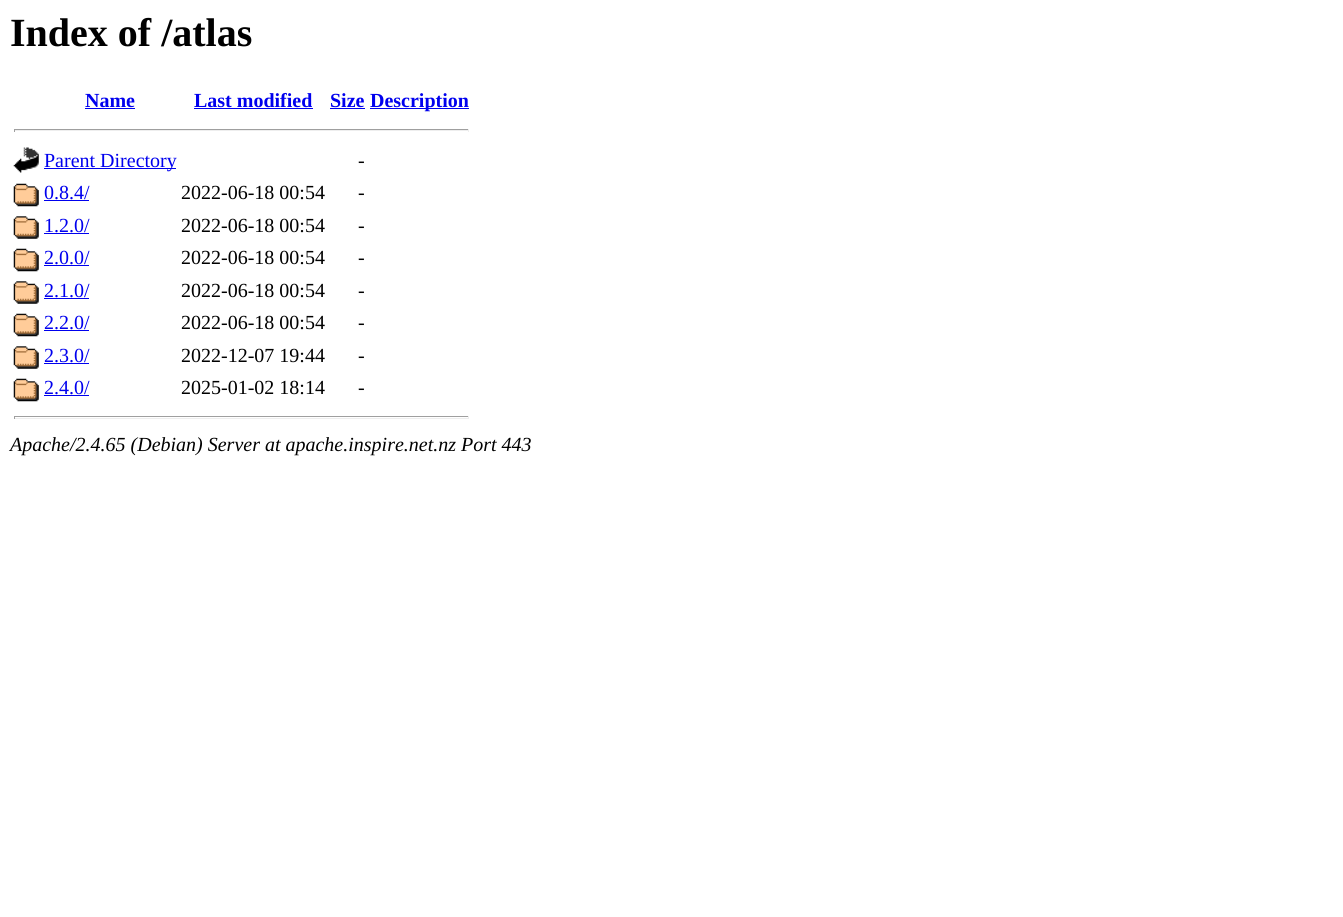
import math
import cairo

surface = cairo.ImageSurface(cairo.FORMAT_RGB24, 1343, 917)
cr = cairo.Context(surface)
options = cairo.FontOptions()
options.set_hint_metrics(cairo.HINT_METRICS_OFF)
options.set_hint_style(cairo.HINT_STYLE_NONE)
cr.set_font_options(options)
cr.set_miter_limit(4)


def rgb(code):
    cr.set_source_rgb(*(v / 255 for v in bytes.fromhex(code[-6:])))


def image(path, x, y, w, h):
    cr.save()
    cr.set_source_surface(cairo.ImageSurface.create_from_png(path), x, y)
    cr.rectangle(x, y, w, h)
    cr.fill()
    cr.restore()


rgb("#ffffff")
cr.paint()
for x, y, w, h, color in [
    (85, 108, 50, 1, "#0000ee"),
    (194, 108, 119, 1, "#0000ee"),
    (330, 108, 35, 1, "#0000ee"),
    (370, 108, 99, 1, "#0000ee"),
    (14, 129, 455, 1, "#9f9f9f"),
    (468, 129, 1, 3, "#eeeeee"),
    (14, 130, 455, 1, "#eeeeee"),
    (14, 129, 1, 3, "#9f9f9f"),
]:
    rgb(color)
    cr.rectangle(x, y, w, h)
    cr.fill()
image("img/1.png", 13, 147, 26, 26)
rgb("#0000ee")
cr.rectangle(44, 168, 132, 1)
cr.fill()
image("img/2.png", 13, 183, 26, 24)
cr.rectangle(44, 200, 45, 1)
cr.fill()
image("img/3.png", 13, 216, 26, 23)
cr.rectangle(44, 233, 45, 1)
cr.fill()
image("img/2.png", 13, 248, 26, 24)
cr.rectangle(44, 265, 45, 1)
cr.fill()
image("img/4.png", 13, 281, 26, 23)
cr.rectangle(44, 298, 45, 1)
cr.fill()
image("img/2.png", 13, 313, 26, 24)
cr.rectangle(44, 330, 45, 1)
cr.fill()
image("img/3.png", 13, 346, 26, 23)
cr.rectangle(44, 363, 45, 1)
cr.fill()
image("img/2.png", 13, 378, 26, 24)
for x, y, w, h, color in [
    (44, 395, 45, 1, "#0000ee"),
    (14, 416, 455, 1, "#9f9f9f"),
    (468, 416, 1, 3, "#eeeeee"),
    (14, 418, 455, 1, "#eeeeee"),
    (14, 416, 1, 3, "#9f9f9f"),
]:
    rgb(color)
    cr.rectangle(x, y, w, h)
    cr.fill()
cr.select_font_face("Liberation Serif", cairo.FONT_SLANT_NORMAL, cairo.FONT_WEIGHT_BOLD)
cr.set_font_size(40)
rgb("#000000")
cr.move_to(10, 46)
cr.show_text("Index of /atlas")
cr.set_font_size(20)
rgb("#0000ee")
for x, y, s in [
    (85, 107, "Name"),
    (194, 107, "Last modified"),
    (330, 107, "Size"),
    (370, 107, "Description"),
]:
    cr.move_to(x, y)
    cr.show_text(s)
cr.select_font_face("Liberation Serif")
cr.move_to(44, 167)
cr.show_text("Parent Directory")
rgb("#000000")
cr.move_to(358, 167)
cr.show_text("-")
rgb("#0000ee")
cr.move_to(44, 199)
cr.show_text("0.8.4/")
rgb("#000000")
cr.move_to(181, 199)
cr.show_text("2022-06-18 00:54")
cr.move_to(358, 199)
cr.show_text("-")
rgb("#0000ee")
cr.move_to(44, 232)
cr.show_text("1.2.0/")
rgb("#000000")
cr.move_to(181, 232)
cr.show_text("2022-06-18 00:54")
cr.move_to(358, 232)
cr.show_text("-")
rgb("#0000ee")
cr.move_to(44, 264)
cr.show_text("2.0.0/")
rgb("#000000")
cr.move_to(181, 264)
cr.show_text("2022-06-18 00:54")
cr.move_to(358, 264)
cr.show_text("-")
rgb("#0000ee")
cr.move_to(44, 297)
cr.show_text("2.1.0/")
rgb("#000000")
cr.move_to(181, 297)
cr.show_text("2022-06-18 00:54")
cr.move_to(358, 297)
cr.show_text("-")
rgb("#0000ee")
cr.move_to(44, 329)
cr.show_text("2.2.0/")
rgb("#000000")
cr.move_to(181, 329)
cr.show_text("2022-06-18 00:54")
cr.move_to(358, 329)
cr.show_text("-")
rgb("#0000ee")
cr.move_to(44, 362)
cr.show_text("2.3.0/")
rgb("#000000")
cr.move_to(181, 362)
cr.show_text("2022-12-07 19:44")
cr.move_to(358, 362)
cr.show_text("-")
rgb("#0000ee")
cr.move_to(44, 394)
cr.show_text("2.4.0/")
rgb("#000000")
cr.move_to(181, 394)
cr.show_text("2025-01-02 18:14")
cr.move_to(358, 394)
cr.show_text("-")
cr.select_font_face("Liberation Serif", cairo.FONT_SLANT_ITALIC)
cr.move_to(10, 451)
cr.show_text("Apache/2.4.65 (Debian) Server at apache.inspire.net.nz Port 443")
surface.write_to_png("page.png")
